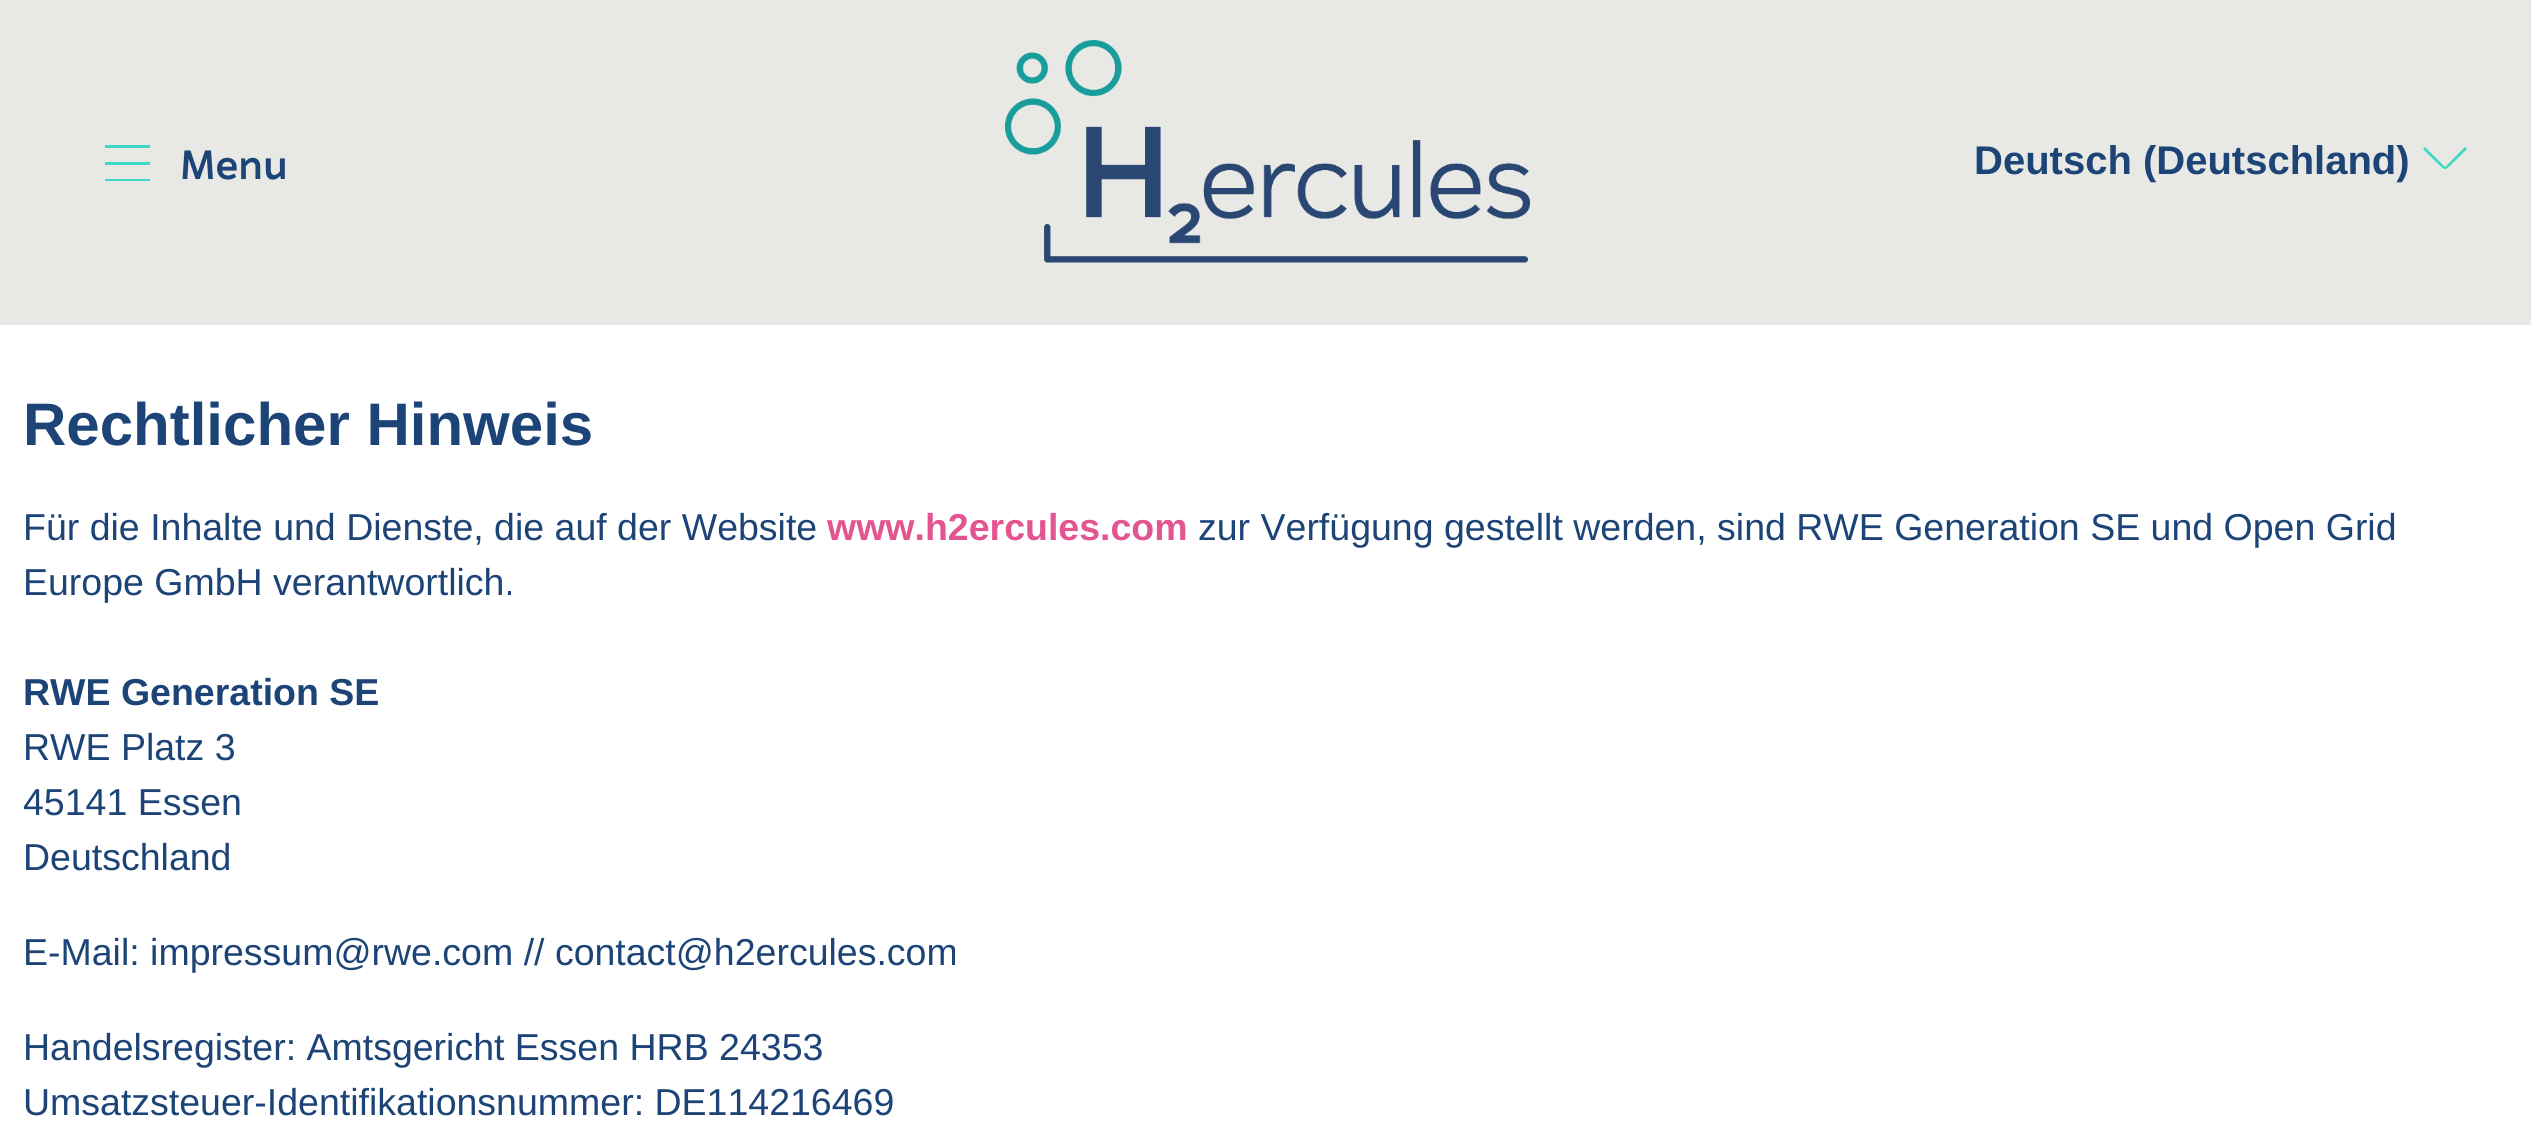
import math
import cairo

surface = cairo.ImageSurface(cairo.FORMAT_RGB24, 2531, 1131)
cr = cairo.Context(surface)
options = cairo.FontOptions()
options.set_hint_metrics(cairo.HINT_METRICS_OFF)
options.set_hint_style(cairo.HINT_STYLE_NONE)
cr.set_font_options(options)
cr.set_miter_limit(4)


def rgb(code):
    cr.set_source_rgb(*(v / 255 for v in bytes.fromhex(code[-6:])))


def image(path, x, y, w, h):
    cr.save()
    cr.set_source_surface(cairo.ImageSurface.create_from_png(path), x, y)
    cr.rectangle(x, y, w, h)
    cr.fill()
    cr.restore()


rgb("#e8e9e4")
cr.paint()
rgb("#3ed8c3")
cr.new_path()
cr.move_to(105, 179)
cr.line_to(150, 179)
cr.line_to(150, 181)
cr.line_to(105, 181)
cr.close_path()
cr.move_to(105, 162)
cr.line_to(150, 162)
cr.line_to(150, 165)
cr.line_to(105, 165)
cr.close_path()
cr.move_to(105, 145)
cr.line_to(150, 145)
cr.line_to(150, 148)
cr.line_to(105, 148)
cr.close_path()
cr.fill()
image("img/1.png", 1005, 40, 525, 223)
cr.new_path()
cr.move_to(2445, 169)
cr.curve_to(2442, 169, 2438, 163, 2436, 162)
cr.line_to(2423, 149)
cr.line_to(2425, 147)
cr.line_to(2441, 163)
cr.curve_to(2446, 168, 2444, 168, 2449, 163)
cr.line_to(2465, 147)
cr.line_to(2467, 149)
cr.line_to(2454, 162)
cr.curve_to(2452, 163, 2448, 169, 2445, 169)
cr.close_path()
cr.fill()
rgb("#ffffff")
cr.rectangle(0, 325, 2531, 806)
cr.fill()
cr.select_font_face("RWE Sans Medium")
cr.set_font_size(40)
rgb("#1d4477")
cr.move_to(180, 179)
cr.show_text("Menu")
cr.select_font_face("Liberation Sans", cairo.FONT_SLANT_NORMAL, cairo.FONT_WEIGHT_BOLD)
cr.move_to(1974, 174)
cr.show_text("Deutsch (Deutschland)")
cr.set_font_size(60)
cr.move_to(23, 445)
cr.show_text("Rechtlicher Hinweis")
cr.select_font_face("Liberation Sans")
cr.set_font_size(37.5)
cr.move_to(23, 540)
cr.show_text("Für die Inhalte und Dienste, die auf der Website")
cr.select_font_face("Liberation Sans", cairo.FONT_SLANT_NORMAL, cairo.FONT_WEIGHT_BOLD)
rgb("#e35590")
cr.move_to(827, 540)
cr.show_text("www.h2ercules.com")
cr.select_font_face("Liberation Sans")
rgb("#1d4477")
cr.move_to(1198, 540)
cr.show_text("zur Verfügung gestellt werden, sind RWE Generation SE und Open Grid")
cr.move_to(23, 595)
cr.show_text("Europe GmbH verantwortlich.")
cr.select_font_face("Liberation Sans", cairo.FONT_SLANT_NORMAL, cairo.FONT_WEIGHT_BOLD)
cr.move_to(23, 705)
cr.show_text("RWE Generation SE")
cr.select_font_face("Liberation Sans")
for x, y, s in [
    (23, 760, "RWE Platz 3"),
    (23, 815, "45141 Essen"),
    (23, 870, "Deutschland"),
    (23, 965, "E-Mail: impressum@rwe.com // contact@h2ercules.com"),
    (23, 1060, "Handelsregister: Amtsgericht Essen HRB 24353"),
    (23, 1115, "Umsatzsteuer-Identifikationsnummer: DE114216469"),
]:
    cr.move_to(x, y)
    cr.show_text(s)
surface.write_to_png("page.png")
